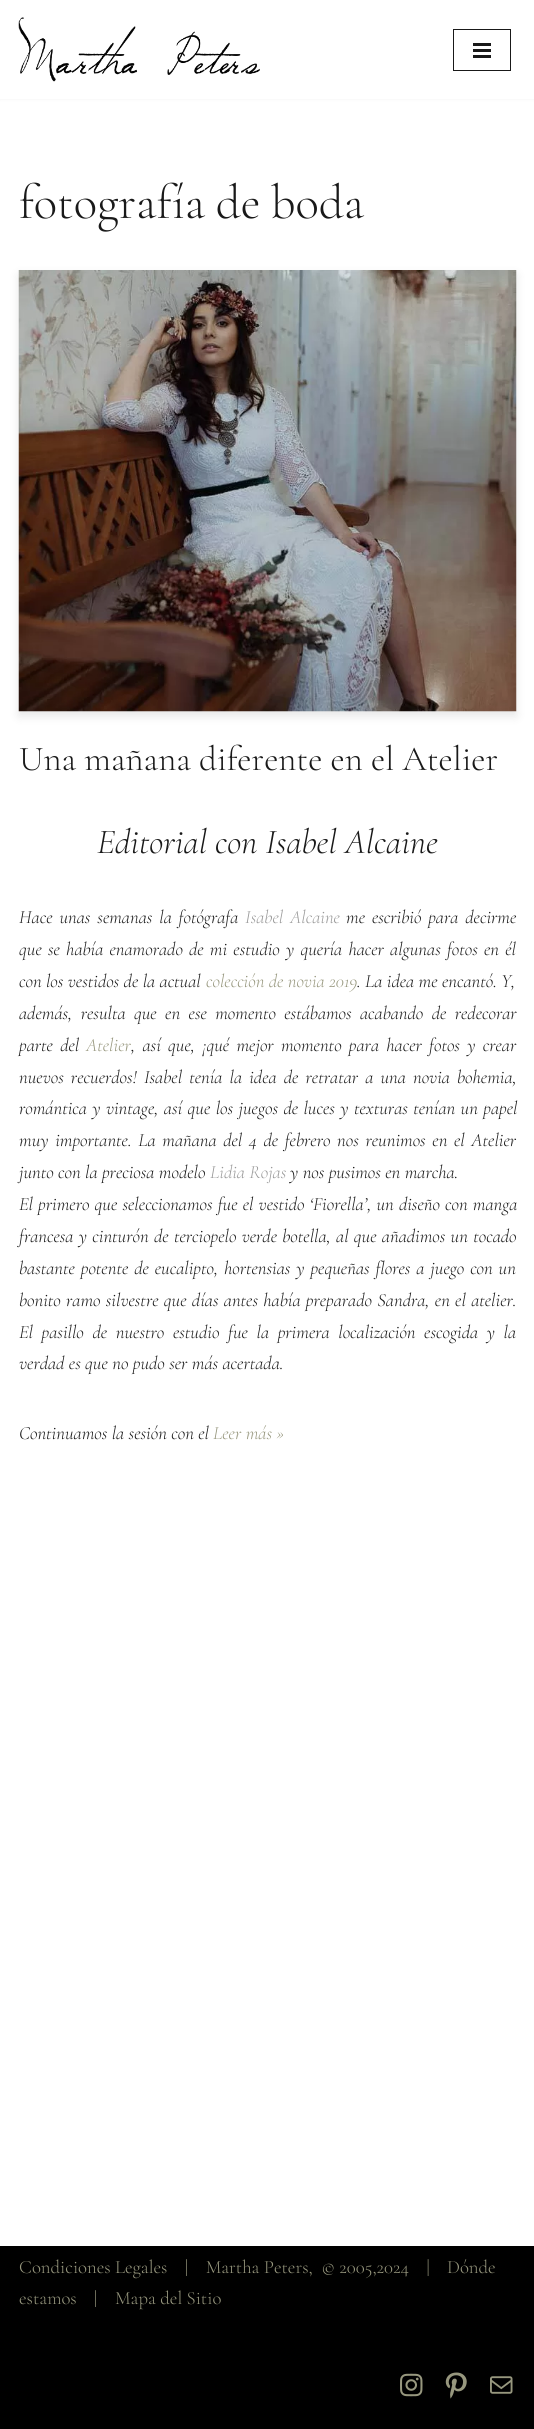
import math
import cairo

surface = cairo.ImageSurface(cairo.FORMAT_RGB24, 534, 2429)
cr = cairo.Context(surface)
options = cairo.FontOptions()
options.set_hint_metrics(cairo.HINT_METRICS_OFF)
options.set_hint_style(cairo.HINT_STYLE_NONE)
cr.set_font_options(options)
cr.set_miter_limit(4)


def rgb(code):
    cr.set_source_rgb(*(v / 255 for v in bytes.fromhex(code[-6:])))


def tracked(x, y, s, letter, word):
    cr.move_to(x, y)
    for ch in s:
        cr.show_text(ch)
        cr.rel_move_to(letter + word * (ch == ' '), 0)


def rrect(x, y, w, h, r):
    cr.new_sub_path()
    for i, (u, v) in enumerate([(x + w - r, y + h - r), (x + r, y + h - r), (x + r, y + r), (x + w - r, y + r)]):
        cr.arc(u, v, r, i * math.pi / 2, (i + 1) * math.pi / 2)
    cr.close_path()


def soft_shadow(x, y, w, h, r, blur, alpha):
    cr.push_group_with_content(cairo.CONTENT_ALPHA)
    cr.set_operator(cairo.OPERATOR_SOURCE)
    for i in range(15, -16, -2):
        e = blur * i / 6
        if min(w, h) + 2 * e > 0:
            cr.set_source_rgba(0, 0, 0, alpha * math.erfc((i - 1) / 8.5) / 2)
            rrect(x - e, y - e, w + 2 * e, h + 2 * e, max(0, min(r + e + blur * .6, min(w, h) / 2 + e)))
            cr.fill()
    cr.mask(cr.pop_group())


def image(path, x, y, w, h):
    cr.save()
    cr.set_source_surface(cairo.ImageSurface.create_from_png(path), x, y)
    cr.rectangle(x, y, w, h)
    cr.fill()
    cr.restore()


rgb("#ffffff")
cr.paint()
rgb("#000000")
soft_shadow(0, -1, 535, 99, 0, 2, 0.1)
rgb("#ffffff")
cr.rectangle(0, 0, 534, 99)
cr.fill()
image("img/1.png", 18, 17, 242, 65)
cr.rectangle(453.5, 29.5, 57, 41)
rgb("#191919")
cr.set_line_width(1)
cr.stroke()
for x, y, w, h, color in [
    (473, 43, 18, 3, "#191919"),
    (473, 49, 18, 3, "#191919"),
    (473, 55, 18, 3, "#191919"),
]:
    rgb(color)
    cr.rectangle(x, y, w, h)
    cr.fill()
rgb("#000000")
soft_shadow(19, 275, 497, 441, 0, 5, 0.1)
image("img/2.png", 18, 270, 499, 442)
rgb("#000000")
cr.rectangle(0, 2246, 534, 183)
cr.fill()
image("img/3.png", 400, 2373, 23, 24)
image("img/4.png", 445, 2372, 22, 27)
image("img/5.png", 490, 2376, 23, 18)
cr.select_font_face("Cormorant Garamond Light")
cr.set_font_size(48.75)
rgb("#191919")
tracked(19, 218, "fotografía de boda", 0, -1)
cr.set_font_size(35)
cr.move_to(19, 770)
cr.show_text("Una mañana diferente en el Atelier")
cr.select_font_face("Cormorant Garamond Light", cairo.FONT_SLANT_ITALIC)
cr.move_to(97, 853)
cr.show_text("Editorial con Isabel Alcaine")
cr.set_font_size(18.75)
tracked(19, 923, "Hace unas semanas la fotógrafa", 0, 2.5)
rgb("#999999")
tracked(245, 923, "Isabel Alcaine", 0, 2.5)
rgb("#191919")
tracked(346, 923, "me escribió para decirme", 0, 2.5)
tracked(19, 955, "que se había enamorado de mi estudio y quería hacer algunas fotos en él", 0, 1.8)
cr.move_to(19, 987)
cr.show_text("con los vestidos de la actual")
rgb("#97977e")
cr.move_to(206, 987)
cr.show_text("colección de novia 2019")
rgb("#191919")
cr.move_to(357, 987)
cr.show_text(". La idea me encantó. Y,")
tracked(19, 1019, "además, resulta que en ese momento estábamos acabando de redecorar", 0, 4)
tracked(19, 1051, "parte del", 0, 2.9)
rgb("#97977e")
cr.move_to(86, 1051)
cr.show_text("Atelier")
rgb("#191919")
tracked(131, 1051, ", así que, ¡qué mejor momento para hacer fotos y crear", 0, 2.9)
tracked(19, 1083, "nuevos recuerdos! Isabel tenía la idea de retratar a una novia bohemia,", 0, 2.75)
tracked(19, 1114, "romántica y vintage, así que los juegos de luces y texturas tenían un papel", 0, 1)
tracked(19, 1146, "muy importante. La mañana del 4 de febrero nos reunimos en el Atelier", 0, 2.25)
cr.move_to(19, 1178)
cr.show_text("junto con la preciosa modelo")
rgb("#999999")
cr.move_to(210, 1178)
cr.show_text("Lidia Rojas")
rgb("#191919")
cr.move_to(290, 1178)
cr.show_text("y nos pusimos en marcha.")
tracked(19, 1210, "El primero que seleccionamos fue el vestido ‘Fiorella’, un diseño con manga", 0, 0.75)
tracked(19, 1242, "francesa y cinturón de terciopelo verde botella, al que añadimos un tocado", 0, 0.9)
tracked(19, 1274, "bastante potente de eucalipto, hortensias y pequeñas flores a juego con un", 0, 1.5)
tracked(19, 1306, "bonito ramo silvestre que días antes había preparado Sandra, en el atelier.", 0, 0.9)
tracked(19, 1338, "El pasillo de nuestro estudio fue la primera localización escogida y la", 0, 4.25)
cr.move_to(19, 1369)
cr.show_text("verdad es que no pudo ser más acertada.")
cr.move_to(19, 1439)
cr.show_text("Continuamos la sesión con el")
rgb("#97977e")
cr.move_to(213, 1439)
cr.show_text("Leer más »")
cr.select_font_face("Cormorant Garamond Light")
for x, y, s in [
    (19, 2273, "Condiciones Legales"),
    (185, 2273, "|    Martha Peters,  © 2005,2024    |"),
    (447, 2273, "Dónde"),
    (19, 2304, "estamos"),
    (94, 2304, "|"),
    (115, 2304, "Mapa del Sitio"),
]:
    cr.move_to(x, y)
    cr.show_text(s)
surface.write_to_png("page.png")
